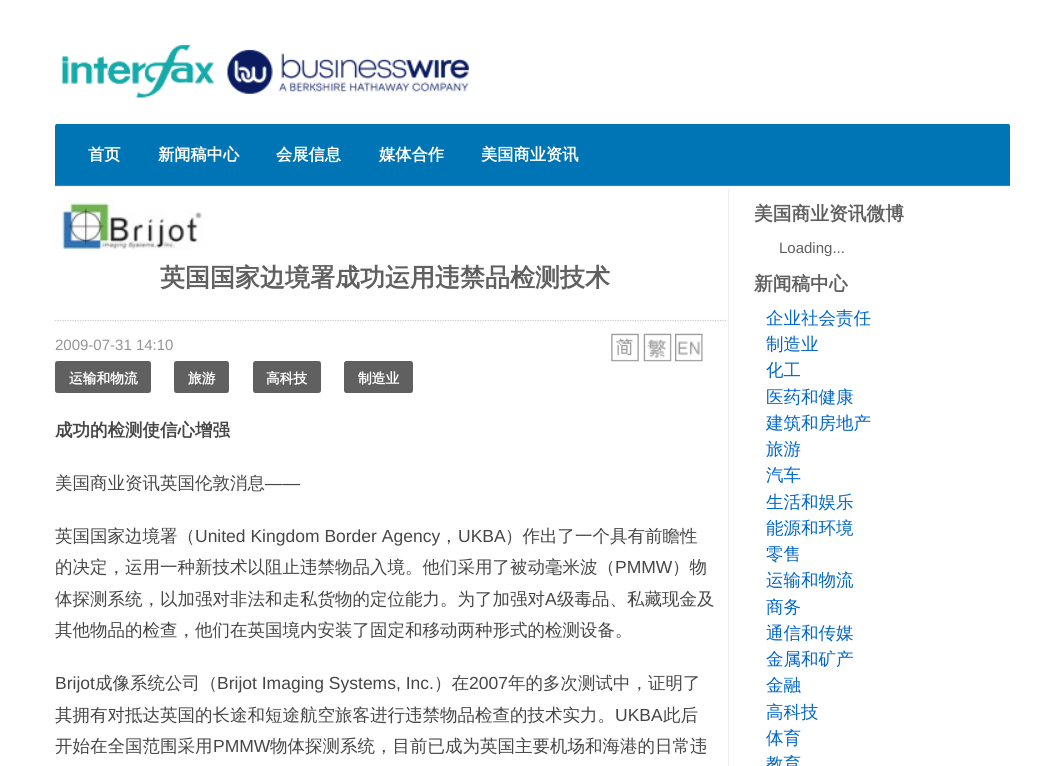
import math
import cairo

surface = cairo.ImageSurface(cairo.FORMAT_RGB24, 1064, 766)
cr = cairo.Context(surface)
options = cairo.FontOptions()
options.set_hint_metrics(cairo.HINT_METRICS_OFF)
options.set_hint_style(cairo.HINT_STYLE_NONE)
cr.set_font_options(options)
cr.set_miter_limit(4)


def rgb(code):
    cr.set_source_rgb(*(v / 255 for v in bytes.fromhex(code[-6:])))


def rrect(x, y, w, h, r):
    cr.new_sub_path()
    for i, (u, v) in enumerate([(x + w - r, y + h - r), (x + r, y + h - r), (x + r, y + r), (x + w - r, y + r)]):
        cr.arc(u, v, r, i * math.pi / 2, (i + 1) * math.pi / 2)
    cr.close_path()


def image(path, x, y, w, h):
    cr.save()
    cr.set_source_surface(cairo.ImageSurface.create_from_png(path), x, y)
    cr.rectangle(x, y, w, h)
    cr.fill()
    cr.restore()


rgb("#ffffff")
cr.paint()
image("img/1.png", 62, 44, 407, 54)
image("img/2.png", 55, 123, 955, 64)
rgb("#efefef")
cr.rectangle(728, 188, 1, 578)
cr.fill()
image("img/3.png", 55, 200, 150, 53)
cr.new_path()
cr.move_to(55, 320.5)
cr.line_to(727.5, 320.5)
rgb("#cccccc")
cr.set_line_width(1.2)
cr.set_dash([1.25, 1.25])
cr.stroke()
image("img/4.png", 611, 333, 28, 29)
image("img/5.png", 643, 333, 29, 29)
image("img/6.png", 675, 333, 28, 29)
rgb("#606060")
rrect(55, 361, 96, 32, 2.5)
cr.fill()
rrect(174, 361, 55, 32, 2.5)
cr.fill()
rrect(253, 361, 68, 32, 2.5)
cr.fill()
rrect(344, 361, 69, 32, 2.5)
cr.fill()
cr.select_font_face("WenQuanYi Zen Hei", cairo.FONT_SLANT_NORMAL, cairo.FONT_WEIGHT_BOLD)
cr.set_font_size(16.25)
rgb("#ffffff")
for x, y, s in [
    (88, 160, "首页"),
    (158, 160, "新闻稿中心"),
    (276, 160, "会展信息"),
    (379, 160, "媒体合作"),
    (481, 160, "美国商业资讯"),
]:
    cr.move_to(x, y)
    cr.show_text(s)
cr.set_font_size(25)
rgb("#606060")
cr.move_to(160, 286)
cr.show_text("英国国家边境署成功运用违禁品检测技术")
cr.select_font_face("Liberation Sans")
cr.set_font_size(15)
rgb("#949494")
cr.move_to(55, 350)
cr.show_text("2009-07-31 14:10")
cr.select_font_face("WenQuanYi Zen Hei", cairo.FONT_SLANT_NORMAL, cairo.FONT_WEIGHT_BOLD)
cr.set_font_size(13.75)
rgb("#ffffff")
for x, y, s in [
    (69, 383, "运输和物流"),
    (188, 383, "旅游"),
    (266, 383, "高科技"),
    (358, 383, "制造业"),
]:
    cr.move_to(x, y)
    cr.show_text(s)
cr.set_font_size(17.5)
rgb("#464646")
cr.move_to(55, 436)
cr.show_text("成功的检测使信心增强")
cr.select_font_face("WenQuanYi Zen Hei Medium")
cr.move_to(55, 489)
cr.show_text("美国商业资讯英国伦敦消息")
cr.select_font_face("Liberation Sans")
cr.move_to(265, 489)
cr.show_text("——")
cr.select_font_face("WenQuanYi Zen Hei Medium")
cr.move_to(55, 542)
cr.show_text("英国国家边境署（")
cr.select_font_face("Liberation Sans")
cr.move_to(195, 542)
cr.show_text("United Kingdom Border Agency")
cr.select_font_face("WenQuanYi Zen Hei Medium")
cr.move_to(440, 542)
cr.show_text("，")
cr.select_font_face("Liberation Sans")
cr.move_to(458, 542)
cr.show_text("UKBA")
cr.select_font_face("WenQuanYi Zen Hei Medium")
cr.move_to(505, 542)
cr.show_text("）作出了一个具有前瞻性")
cr.move_to(55, 573)
cr.show_text("的决定，运用一种新技术以阻止违禁物品入境。他们采用了被动毫米波（")
cr.select_font_face("Liberation Sans")
cr.move_to(615, 573)
cr.show_text("PMMW")
cr.select_font_face("WenQuanYi Zen Hei Medium")
cr.move_to(672, 573)
cr.show_text("）物")
cr.move_to(55, 605)
cr.show_text("体探测系统，以加强对非法和走私货物的定位能力。为了加强对")
cr.select_font_face("Liberation Sans")
cr.move_to(545, 605)
cr.show_text("A")
cr.select_font_face("WenQuanYi Zen Hei Medium")
cr.move_to(557, 605)
cr.show_text("级毒品、私藏现金及")
cr.move_to(55, 636)
cr.show_text("其他物品的检查，他们在英国境内安装了固定和移动两种形式的检测设备。")
cr.select_font_face("Liberation Sans")
cr.move_to(55, 689)
cr.show_text("Brijot")
cr.select_font_face("WenQuanYi Zen Hei Medium")
cr.move_to(95, 689)
cr.show_text("成像系统公司（")
cr.select_font_face("Liberation Sans")
cr.move_to(217, 689)
cr.show_text("Brijot Imaging Systems, Inc.")
cr.select_font_face("WenQuanYi Zen Hei Medium")
cr.move_to(434, 689)
cr.show_text("）在")
cr.select_font_face("Liberation Sans")
cr.move_to(469, 689)
cr.show_text("2007")
cr.select_font_face("WenQuanYi Zen Hei Medium")
cr.move_to(508, 689)
cr.show_text("年的多次测试中，证明了")
cr.move_to(55, 721)
cr.show_text("其拥有对抵达英国的长途和短途航空旅客进行违禁物品检查的技术实力。")
cr.select_font_face("Liberation Sans")
cr.move_to(615, 721)
cr.show_text("UKBA")
cr.select_font_face("WenQuanYi Zen Hei Medium")
cr.move_to(663, 721)
cr.show_text("此后")
cr.move_to(55, 752)
cr.show_text("开始在全国范围采用")
cr.select_font_face("Liberation Sans")
cr.move_to(213, 752)
cr.show_text("PMMW")
cr.select_font_face("WenQuanYi Zen Hei Medium")
cr.move_to(270, 752)
cr.show_text("物体探测系统，目前已成为英国主要机场和海港的日常违")
cr.select_font_face("WenQuanYi Zen Hei", cairo.FONT_SLANT_NORMAL, cairo.FONT_WEIGHT_BOLD)
cr.set_font_size(18.75)
rgb("#606060")
cr.move_to(754, 220)
cr.show_text("美国商业资讯微博")
cr.select_font_face("Liberation Sans")
cr.set_font_size(15)
cr.move_to(779, 253)
cr.show_text("Loading...")
cr.select_font_face("WenQuanYi Zen Hei", cairo.FONT_SLANT_NORMAL, cairo.FONT_WEIGHT_BOLD)
cr.set_font_size(18.75)
cr.move_to(754, 290)
cr.show_text("新闻稿中心")
cr.select_font_face("WenQuanYi Zen Hei Medium")
cr.set_font_size(17.5)
rgb("#0066cc")
for x, y, s in [
    (766, 324, "企业社会责任"),
    (766, 350, "制造业"),
    (766, 376, "化工"),
    (766, 403, "医药和健康"),
    (766, 429, "建筑和房地产"),
    (766, 455, "旅游"),
    (766, 481, "汽车"),
    (766, 508, "生活和娱乐"),
    (766, 534, "能源和环境"),
    (766, 560, "零售"),
    (766, 586, "运输和物流"),
    (766, 613, "商务"),
    (766, 639, "通信和传媒"),
    (766, 665, "金属和矿产"),
    (766, 691, "金融"),
    (766, 718, "高科技"),
    (766, 744, "体育"),
    (766, 770, "教育"),
]:
    cr.move_to(x, y)
    cr.show_text(s)
surface.write_to_png("page.png")
